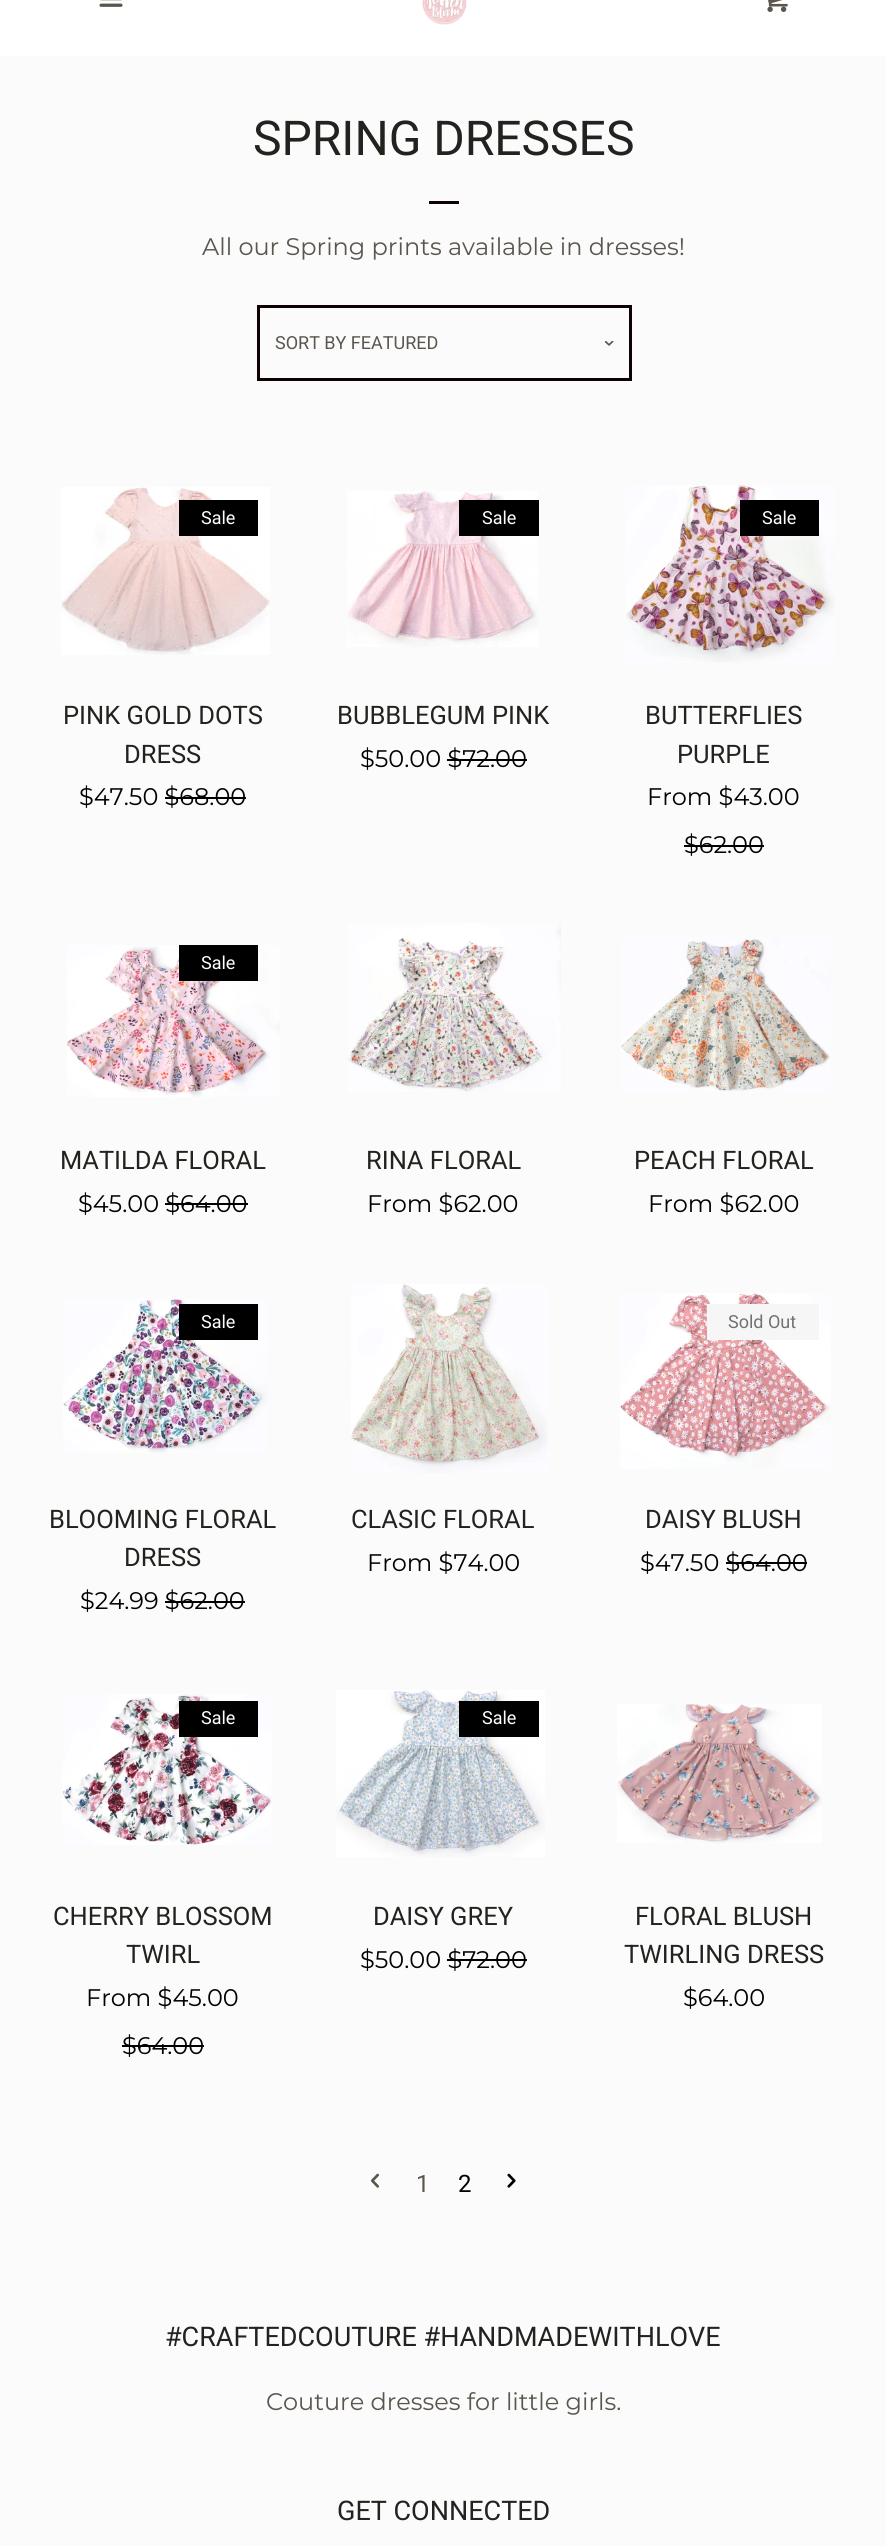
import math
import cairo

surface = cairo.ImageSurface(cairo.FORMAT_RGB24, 886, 2546)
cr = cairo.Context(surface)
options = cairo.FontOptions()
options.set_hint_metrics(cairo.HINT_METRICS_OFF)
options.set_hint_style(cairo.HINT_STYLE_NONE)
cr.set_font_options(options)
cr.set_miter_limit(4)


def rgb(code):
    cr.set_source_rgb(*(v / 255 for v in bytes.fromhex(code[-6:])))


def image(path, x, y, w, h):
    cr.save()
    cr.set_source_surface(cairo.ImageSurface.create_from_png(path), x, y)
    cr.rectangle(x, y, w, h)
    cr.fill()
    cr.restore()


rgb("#ffffff")
cr.paint()
image("img/1.png", 99, 0, 24, 7)
image("img/2.png", 422, 0, 45, 25)
image("img/3.png", 767, 0, 21, 12)
rgb("#fbfbfb")
cr.rectangle(0, 56, 886, 2490)
cr.fill()
rgb("#0d0101")
cr.rectangle(429, 201, 30, 3)
cr.fill()
image("img/4.png", 605, 341, 9, 5)
cr.rectangle(258.5, 306.5, 372, 73)
cr.set_line_width(3)
cr.stroke()
image("img/5.png", 61, 487, 209, 168)
rgb("#000000")
cr.rectangle(179, 500, 79, 36)
cr.fill()
cr.rectangle(165, 797, 81, 2)
cr.fill()
image("img/6.png", 347, 491, 191, 156)
cr.rectangle(459, 500, 80, 36)
cr.fill()
cr.rectangle(447, 759, 80, 2)
cr.fill()
image("img/7.png", 626, 485, 209, 178)
cr.rectangle(740, 500, 79, 36)
cr.fill()
cr.rectangle(684, 845, 80, 2)
cr.fill()
image("img/8.png", 67, 945, 213, 152)
cr.rectangle(179, 945, 79, 36)
cr.fill()
cr.rectangle(165, 1203, 83, 2)
cr.fill()
image("img/9.png", 348, 923, 213, 169)
image("img/10.png", 621, 938, 209, 154)
image("img/11.png", 63, 1299, 204, 154)
cr.rectangle(179, 1304, 79, 36)
cr.fill()
cr.rectangle(165, 1601, 80, 2)
cr.fill()
image("img/12.png", 351, 1284, 197, 189)
image("img/13.png", 620, 1293, 211, 176)
rgb("#f6f6f6")
cr.rectangle(707, 1304, 112, 36)
cr.fill()
rgb("#000000")
cr.rectangle(726, 1562, 81, 2)
cr.fill()
image("img/14.png", 62, 1694, 210, 151)
cr.rectangle(179, 1701, 79, 36)
cr.fill()
cr.rectangle(122, 2045, 82, 2)
cr.fill()
image("img/15.png", 336, 1690, 209, 167)
cr.rectangle(459, 1701, 80, 36)
cr.fill()
cr.rectangle(447, 1959, 80, 2)
cr.fill()
image("img/16.png", 617, 1704, 205, 139)
image("img/17.png", 370, 2173, 10, 15)
image("img/18.png", 507, 2173, 9, 15)
cr.select_font_face("Roboto")
cr.set_font_size(48)
rgb("#24221e")
cr.move_to(253, 155)
cr.show_text("SPRING DRESSES")
cr.select_font_face("Montserrat")
cr.set_font_size(24)
rgb("#5b564d")
cr.move_to(202, 255)
cr.show_text("All our Spring prints available in dresses!")
cr.select_font_face("Roboto")
cr.set_font_size(18)
cr.move_to(275, 349)
cr.show_text("SORT BY FEATURED")
rgb("#ffffff")
cr.move_to(201, 524)
cr.show_text("Sale")
cr.set_font_size(25.5)
rgb("#24221e")
cr.move_to(63, 724)
cr.show_text("PINK GOLD DOTS")
cr.move_to(124, 763)
cr.show_text("DRESS")
cr.select_font_face("Montserrat")
cr.set_font_size(24)
rgb("#000000")
cr.move_to(79, 805)
cr.show_text("$47.50 $68.00")
cr.select_font_face("Roboto")
cr.set_font_size(18)
rgb("#ffffff")
cr.move_to(482, 524)
cr.show_text("Sale")
cr.set_font_size(25.5)
rgb("#24221e")
cr.move_to(337, 724)
cr.show_text("BUBBLEGUM PINK")
cr.select_font_face("Montserrat")
cr.set_font_size(24)
rgb("#000000")
cr.move_to(360, 767)
cr.show_text("$50.00 $72.00")
cr.select_font_face("Roboto")
cr.set_font_size(18)
rgb("#ffffff")
cr.move_to(762, 524)
cr.show_text("Sale")
cr.set_font_size(25.5)
rgb("#24221e")
cr.move_to(645, 724)
cr.show_text("BUTTERFLIES")
cr.move_to(677, 763)
cr.show_text("PURPLE")
cr.select_font_face("Montserrat")
cr.set_font_size(24)
rgb("#000000")
cr.move_to(647, 805)
cr.show_text("From $43.00")
cr.move_to(684, 853)
cr.show_text("$62.00")
cr.select_font_face("Roboto")
cr.set_font_size(18)
rgb("#ffffff")
cr.move_to(201, 969)
cr.show_text("Sale")
cr.set_font_size(25.5)
rgb("#24221e")
cr.move_to(60, 1169)
cr.show_text("MATILDA FLORAL")
cr.select_font_face("Montserrat")
cr.set_font_size(24)
rgb("#000000")
cr.move_to(78, 1212)
cr.show_text("$45.00 $64.00")
cr.select_font_face("Roboto")
cr.set_font_size(25.5)
rgb("#24221e")
cr.move_to(366, 1169)
cr.show_text("RINA FLORAL")
cr.select_font_face("Montserrat")
cr.set_font_size(24)
rgb("#000000")
cr.move_to(367, 1212)
cr.show_text("From $62.00")
cr.select_font_face("Roboto")
cr.set_font_size(25.5)
rgb("#24221e")
cr.move_to(634, 1169)
cr.show_text("PEACH FLORAL")
cr.select_font_face("Montserrat")
cr.set_font_size(24)
rgb("#000000")
cr.move_to(648, 1212)
cr.show_text("From $62.00")
cr.select_font_face("Roboto")
cr.set_font_size(18)
rgb("#ffffff")
cr.move_to(201, 1328)
cr.show_text("Sale")
cr.set_font_size(25.5)
rgb("#24221e")
cr.move_to(49, 1528)
cr.show_text("BLOOMING FLORAL")
cr.move_to(124, 1566)
cr.show_text("DRESS")
cr.select_font_face("Montserrat")
cr.set_font_size(24)
rgb("#000000")
cr.move_to(80, 1609)
cr.show_text("$24.99 $62.00")
cr.select_font_face("Roboto")
cr.set_font_size(25.5)
rgb("#24221e")
cr.move_to(351, 1528)
cr.show_text("CLASIC FLORAL")
cr.select_font_face("Montserrat")
cr.set_font_size(24)
rgb("#000000")
cr.move_to(367, 1571)
cr.show_text("From $74.00")
cr.select_font_face("Roboto")
cr.set_font_size(18)
rgb("#717171")
cr.move_to(728, 1328)
cr.show_text("Sold Out")
cr.set_font_size(25.5)
rgb("#24221e")
cr.move_to(645, 1528)
cr.show_text("DAISY BLUSH")
cr.select_font_face("Montserrat")
cr.set_font_size(24)
rgb("#000000")
cr.move_to(640, 1571)
cr.show_text("$47.50 $64.00")
cr.select_font_face("Roboto")
cr.set_font_size(18)
rgb("#ffffff")
cr.move_to(201, 1724)
cr.show_text("Sale")
cr.set_font_size(25.5)
rgb("#24221e")
cr.move_to(53, 1925)
cr.show_text("CHERRY BLOSSOM")
cr.move_to(126, 1963)
cr.show_text("TWIRL")
cr.select_font_face("Montserrat")
cr.set_font_size(24)
rgb("#000000")
cr.move_to(86, 2006)
cr.show_text("From $45.00")
cr.move_to(122, 2054)
cr.show_text("$64.00")
cr.select_font_face("Roboto")
cr.set_font_size(18)
rgb("#ffffff")
cr.move_to(482, 1724)
cr.show_text("Sale")
cr.set_font_size(25.5)
rgb("#24221e")
cr.move_to(373, 1925)
cr.show_text("DAISY GREY")
cr.select_font_face("Montserrat")
cr.set_font_size(24)
rgb("#000000")
cr.move_to(360, 1968)
cr.show_text("$50.00 $72.00")
cr.select_font_face("Roboto")
cr.set_font_size(25.5)
rgb("#24221e")
cr.move_to(635, 1925)
cr.show_text("FLORAL BLUSH")
cr.move_to(624, 1963)
cr.show_text("TWIRLING DRESS")
cr.select_font_face("Montserrat")
cr.set_font_size(24)
rgb("#000000")
cr.move_to(683, 2006)
cr.show_text("$64.00")
cr.select_font_face("Roboto")
rgb("#5b564d")
cr.move_to(416, 2192)
cr.show_text("1")
rgb("#000000")
cr.move_to(458, 2192)
cr.show_text("2")
cr.set_font_size(27)
rgb("#24221e")
cr.move_to(165, 2346)
cr.show_text("#CRAFTEDCOUTURE #HANDMADEWITHLOVE")
cr.select_font_face("Montserrat")
cr.set_font_size(24)
rgb("#5b564d")
cr.move_to(266, 2410)
cr.show_text("Couture dresses for little girls.")
cr.select_font_face("Roboto")
cr.set_font_size(27)
rgb("#24221e")
cr.move_to(337, 2520)
cr.show_text("GET CONNECTED")
surface.write_to_png("page.png")
